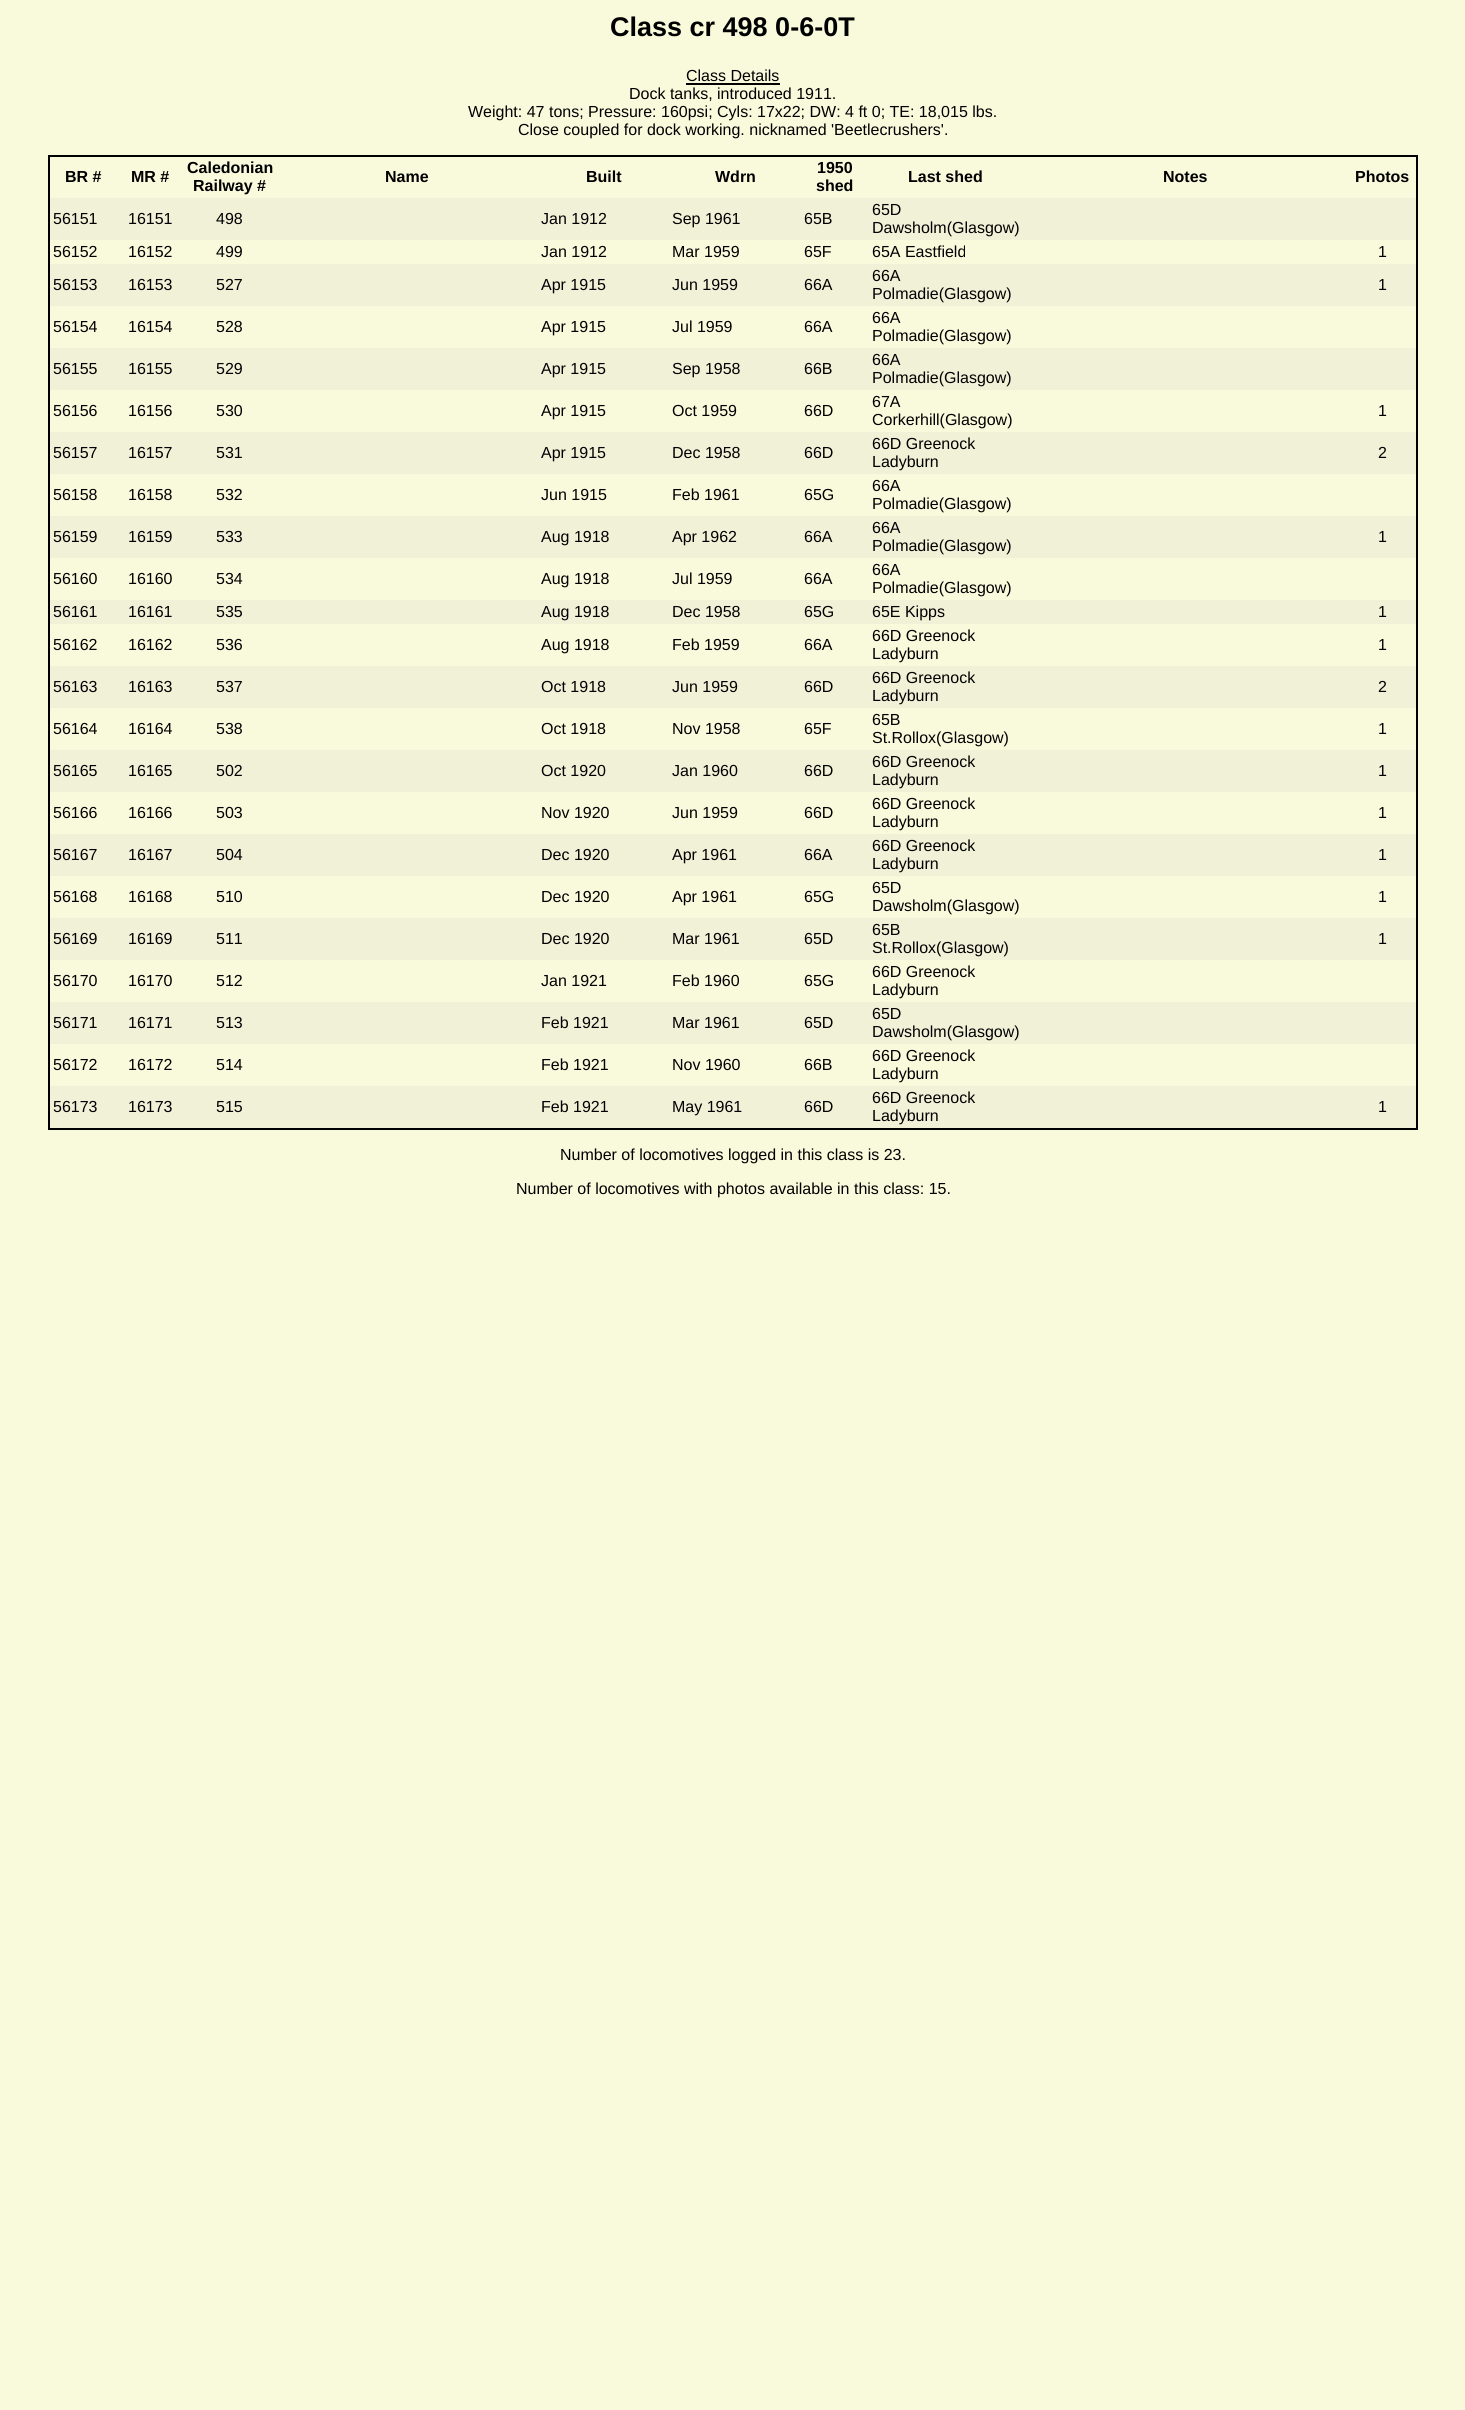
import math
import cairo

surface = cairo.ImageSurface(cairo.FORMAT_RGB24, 1465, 2410)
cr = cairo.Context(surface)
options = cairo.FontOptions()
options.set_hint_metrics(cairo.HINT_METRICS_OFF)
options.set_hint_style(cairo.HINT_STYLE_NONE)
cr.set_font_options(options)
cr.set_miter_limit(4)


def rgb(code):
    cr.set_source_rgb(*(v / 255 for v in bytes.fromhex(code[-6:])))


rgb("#f9f9dc")
cr.paint()
for x, y, w, h, color in [
    (686, 83, 94, 2, "#000000"),
    (48, 155, 1370, 2, "#000000"),
    (48, 1128, 1370, 2, "#000000"),
    (1416, 155, 2, 975, "#000000"),
    (48, 155, 2, 975, "#000000"),
    (50, 198, 1366, 42, "#f1f1d8"),
    (50, 264, 1366, 42, "#f1f1d8"),
    (50, 348, 1366, 42, "#f1f1d8"),
    (50, 432, 1366, 42, "#f1f1d8"),
    (50, 516, 1366, 42, "#f1f1d8"),
    (50, 600, 1366, 24, "#f1f1d8"),
    (50, 666, 1366, 42, "#f1f1d8"),
    (50, 750, 1366, 42, "#f1f1d8"),
    (50, 834, 1366, 42, "#f1f1d8"),
    (50, 918, 1366, 42, "#f1f1d8"),
    (50, 1002, 1366, 42, "#f1f1d8"),
    (50, 1086, 1366, 42, "#f1f1d8"),
]:
    rgb(color)
    cr.rectangle(x, y, w, h)
    cr.fill()
cr.select_font_face("Liberation Sans", cairo.FONT_SLANT_NORMAL, cairo.FONT_WEIGHT_BOLD)
cr.set_font_size(27)
rgb("#000000")
cr.move_to(610, 36)
cr.show_text("Class cr 498 0-6-0T")
cr.select_font_face("Liberation Sans")
cr.set_font_size(16)
for x, y, s in [
    (686, 81, "Class Details"),
    (629, 99, "Dock tanks, introduced 1911."),
    (468, 117, "Weight: 47 tons; Pressure: 160psi; Cyls: 17x22; DW: 4 ft 0; TE: 18,015 lbs."),
    (518, 135, "Close coupled for dock working. nicknamed 'Beetlecrushers'."),
]:
    cr.move_to(x, y)
    cr.show_text(s)
cr.select_font_face("Liberation Sans", cairo.FONT_SLANT_NORMAL, cairo.FONT_WEIGHT_BOLD)
for x, y, s in [
    (65, 182, "BR #"),
    (131, 182, "MR #"),
    (187, 173, "Caledonian"),
    (193, 191, "Railway #"),
    (385, 182, "Name"),
    (586, 182, "Built"),
    (715, 182, "Wdrn"),
    (817, 173, "1950"),
    (816, 191, "shed"),
    (908, 182, "Last shed"),
    (1163, 182, "Notes"),
    (1355, 182, "Photos"),
]:
    cr.move_to(x, y)
    cr.show_text(s)
cr.select_font_face("Liberation Sans")
for x, y, s in [
    (53, 224, "56151"),
    (128, 224, "16151"),
    (216, 224, "498"),
    (541, 224, "Jan 1912"),
    (672, 224, "Sep 1961"),
    (804, 224, "65B"),
    (872, 215, "65D"),
    (872, 233, "Dawsholm(Glasgow)"),
    (53, 257, "56152"),
    (128, 257, "16152"),
    (216, 257, "499"),
    (541, 257, "Jan 1912"),
    (672, 257, "Mar 1959"),
    (804, 257, "65F"),
    (872, 257, "65A Eastfield"),
    (1378, 257, "1"),
    (53, 290, "56153"),
    (128, 290, "16153"),
    (216, 290, "527"),
    (541, 290, "Apr 1915"),
    (672, 290, "Jun 1959"),
    (804, 290, "66A"),
    (872, 281, "66A"),
    (872, 299, "Polmadie(Glasgow)"),
    (1378, 290, "1"),
    (53, 332, "56154"),
    (128, 332, "16154"),
    (216, 332, "528"),
    (541, 332, "Apr 1915"),
    (672, 332, "Jul 1959"),
    (804, 332, "66A"),
    (872, 323, "66A"),
    (872, 341, "Polmadie(Glasgow)"),
    (53, 374, "56155"),
    (128, 374, "16155"),
    (216, 374, "529"),
    (541, 374, "Apr 1915"),
    (672, 374, "Sep 1958"),
    (804, 374, "66B"),
    (872, 365, "66A"),
    (872, 383, "Polmadie(Glasgow)"),
    (53, 416, "56156"),
    (128, 416, "16156"),
    (216, 416, "530"),
    (541, 416, "Apr 1915"),
    (672, 416, "Oct 1959"),
    (804, 416, "66D"),
    (872, 407, "67A"),
    (872, 425, "Corkerhill(Glasgow)"),
    (1378, 416, "1"),
    (53, 458, "56157"),
    (128, 458, "16157"),
    (216, 458, "531"),
    (541, 458, "Apr 1915"),
    (672, 458, "Dec 1958"),
    (804, 458, "66D"),
    (872, 449, "66D Greenock"),
    (872, 467, "Ladyburn"),
    (1378, 458, "2"),
    (53, 500, "56158"),
    (128, 500, "16158"),
    (216, 500, "532"),
    (541, 500, "Jun 1915"),
    (672, 500, "Feb 1961"),
    (804, 500, "65G"),
    (872, 491, "66A"),
    (872, 509, "Polmadie(Glasgow)"),
    (53, 542, "56159"),
    (128, 542, "16159"),
    (216, 542, "533"),
    (541, 542, "Aug 1918"),
    (672, 542, "Apr 1962"),
    (804, 542, "66A"),
    (872, 533, "66A"),
    (872, 551, "Polmadie(Glasgow)"),
    (1378, 542, "1"),
    (53, 584, "56160"),
    (128, 584, "16160"),
    (216, 584, "534"),
    (541, 584, "Aug 1918"),
    (672, 584, "Jul 1959"),
    (804, 584, "66A"),
    (872, 575, "66A"),
    (872, 593, "Polmadie(Glasgow)"),
    (53, 617, "56161"),
    (128, 617, "16161"),
    (216, 617, "535"),
    (541, 617, "Aug 1918"),
    (672, 617, "Dec 1958"),
    (804, 617, "65G"),
    (872, 617, "65E Kipps"),
    (1378, 617, "1"),
    (53, 650, "56162"),
    (128, 650, "16162"),
    (216, 650, "536"),
    (541, 650, "Aug 1918"),
    (672, 650, "Feb 1959"),
    (804, 650, "66A"),
    (872, 641, "66D Greenock"),
    (872, 659, "Ladyburn"),
    (1378, 650, "1"),
    (53, 692, "56163"),
    (128, 692, "16163"),
    (216, 692, "537"),
    (541, 692, "Oct 1918"),
    (672, 692, "Jun 1959"),
    (804, 692, "66D"),
    (872, 683, "66D Greenock"),
    (872, 701, "Ladyburn"),
    (1378, 692, "2"),
    (53, 734, "56164"),
    (128, 734, "16164"),
    (216, 734, "538"),
    (541, 734, "Oct 1918"),
    (672, 734, "Nov 1958"),
    (804, 734, "65F"),
    (872, 725, "65B"),
    (872, 743, "St.Rollox(Glasgow)"),
    (1378, 734, "1"),
    (53, 776, "56165"),
    (128, 776, "16165"),
    (216, 776, "502"),
    (541, 776, "Oct 1920"),
    (672, 776, "Jan 1960"),
    (804, 776, "66D"),
    (872, 767, "66D Greenock"),
    (872, 785, "Ladyburn"),
    (1378, 776, "1"),
    (53, 818, "56166"),
    (128, 818, "16166"),
    (216, 818, "503"),
    (541, 818, "Nov 1920"),
    (672, 818, "Jun 1959"),
    (804, 818, "66D"),
    (872, 809, "66D Greenock"),
    (872, 827, "Ladyburn"),
    (1378, 818, "1"),
    (53, 860, "56167"),
    (128, 860, "16167"),
    (216, 860, "504"),
    (541, 860, "Dec 1920"),
    (672, 860, "Apr 1961"),
    (804, 860, "66A"),
    (872, 851, "66D Greenock"),
    (872, 869, "Ladyburn"),
    (1378, 860, "1"),
    (53, 902, "56168"),
    (128, 902, "16168"),
    (216, 902, "510"),
    (541, 902, "Dec 1920"),
    (672, 902, "Apr 1961"),
    (804, 902, "65G"),
    (872, 893, "65D"),
    (872, 911, "Dawsholm(Glasgow)"),
    (1378, 902, "1"),
    (53, 944, "56169"),
    (128, 944, "16169"),
    (216, 944, "511"),
    (541, 944, "Dec 1920"),
    (672, 944, "Mar 1961"),
    (804, 944, "65D"),
    (872, 935, "65B"),
    (872, 953, "St.Rollox(Glasgow)"),
    (1378, 944, "1"),
    (53, 986, "56170"),
    (128, 986, "16170"),
    (216, 986, "512"),
    (541, 986, "Jan 1921"),
    (672, 986, "Feb 1960"),
    (804, 986, "65G"),
    (872, 977, "66D Greenock"),
    (872, 995, "Ladyburn"),
    (53, 1028, "56171"),
    (128, 1028, "16171"),
    (216, 1028, "513"),
    (541, 1028, "Feb 1921"),
    (672, 1028, "Mar 1961"),
    (804, 1028, "65D"),
    (872, 1019, "65D"),
    (872, 1037, "Dawsholm(Glasgow)"),
    (53, 1070, "56172"),
    (128, 1070, "16172"),
    (216, 1070, "514"),
    (541, 1070, "Feb 1921"),
    (672, 1070, "Nov 1960"),
    (804, 1070, "66B"),
    (872, 1061, "66D Greenock"),
    (872, 1079, "Ladyburn"),
    (53, 1112, "56173"),
    (128, 1112, "16173"),
    (216, 1112, "515"),
    (541, 1112, "Feb 1921"),
    (672, 1112, "May 1961"),
    (804, 1112, "66D"),
    (872, 1103, "66D Greenock"),
    (872, 1121, "Ladyburn"),
    (1378, 1112, "1"),
    (560, 1160, "Number of locomotives logged in this class is 23."),
    (516, 1194, "Number of locomotives with photos available in this class: 15."),
]:
    cr.move_to(x, y)
    cr.show_text(s)
surface.write_to_png("page.png")
